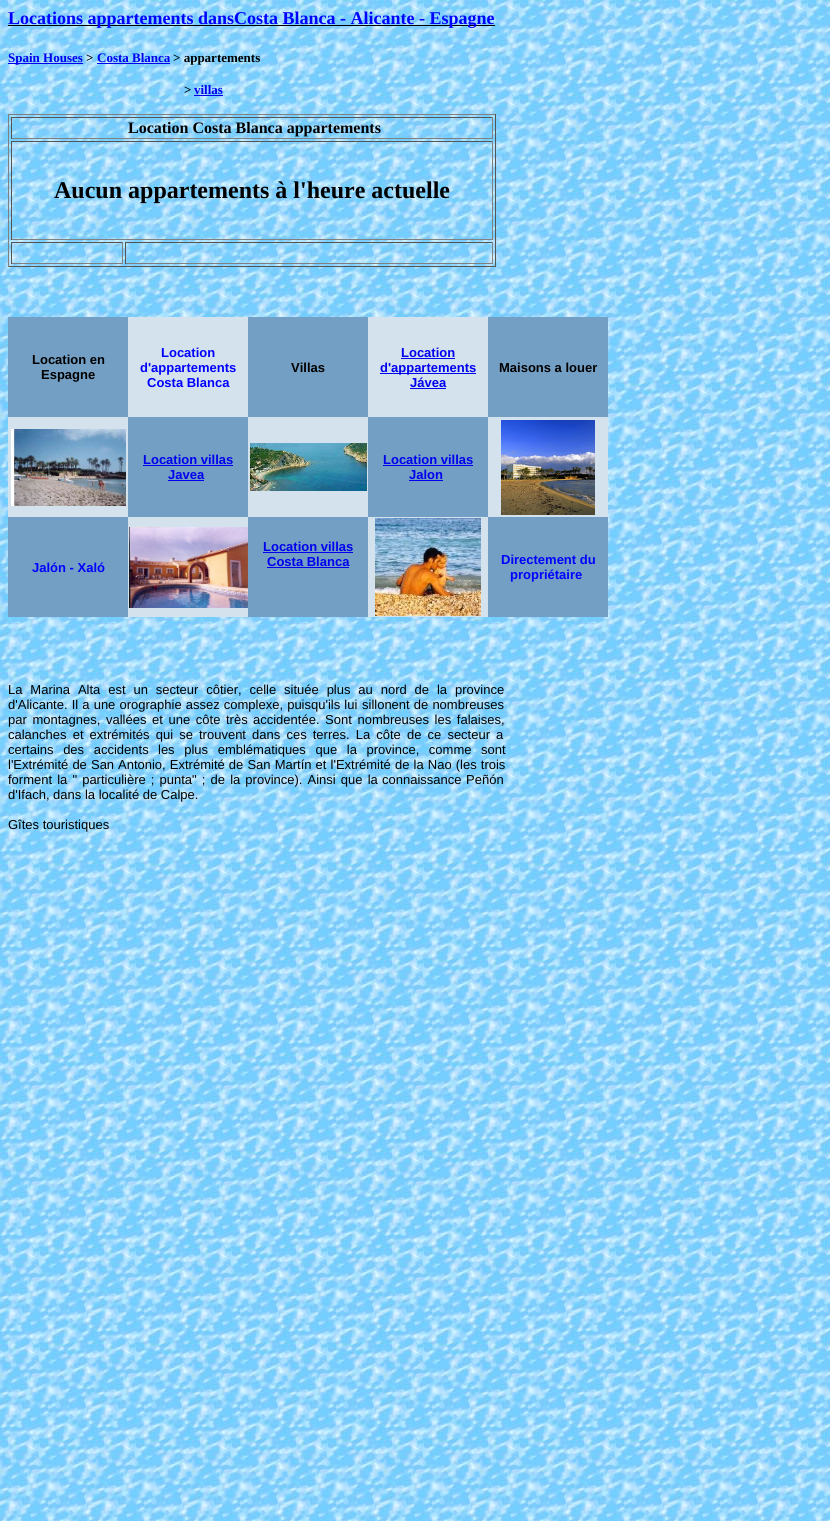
import math
import cairo

surface = cairo.ImageSurface(cairo.FORMAT_RGB24, 830, 1521)
cr = cairo.Context(surface)
options = cairo.FontOptions()
options.set_hint_metrics(cairo.HINT_METRICS_OFF)
options.set_hint_style(cairo.HINT_STYLE_NONE)
cr.set_font_options(options)
cr.set_miter_limit(4)


def rgb(code):
    cr.set_source_rgb(*(v / 255 for v in bytes.fromhex(code[-6:])))


def tracked(x, y, s, letter, word):
    cr.move_to(x, y)
    for ch in s:
        cr.show_text(ch)
        cr.rel_move_to(letter + word * (ch == ' '), 0)


def image(path, x, y, w, h):
    cr.save()
    cr.set_source_surface(cairo.ImageSurface.create_from_png(path), x, y)
    cr.rectangle(x, y, w, h)
    cr.fill()
    cr.restore()


rgb("#ffffff")
cr.paint()
image("img/1.png", 0, 0, 830, 1521)
for x, y, w, h, color in [
    (8, 25, 487, 1, "#000000"),
    (8, 63, 75, 1, "#0000ee"),
    (97, 63, 73, 1, "#0000ee"),
    (194, 95, 29, 1, "#0000ee"),
    (8, 114, 488, 1, "#808080"),
    (495, 114, 1, 153, "#555555"),
    (8, 266, 488, 1, "#555555"),
    (8, 114, 1, 153, "#808080"),
    (11, 117, 482, 1, "#555555"),
    (492, 117, 1, 22, "#808080"),
    (11, 138, 482, 1, "#808080"),
    (11, 117, 1, 22, "#555555"),
    (11, 141, 482, 1, "#555555"),
    (492, 141, 1, 99, "#808080"),
    (11, 239, 482, 1, "#808080"),
    (11, 141, 1, 99, "#555555"),
    (11, 242, 112, 1, "#555555"),
    (122, 242, 1, 22, "#808080"),
    (11, 263, 112, 1, "#808080"),
    (11, 242, 1, 22, "#555555"),
    (125, 242, 368, 1, "#555555"),
    (492, 242, 1, 22, "#808080"),
    (125, 263, 368, 1, "#808080"),
    (125, 242, 1, 22, "#555555"),
    (8, 317, 120, 100, "#739fc4"),
    (128, 317, 120, 100, "#d4e2ed"),
    (248, 317, 120, 100, "#739fc4"),
    (368, 317, 120, 100, "#d4e2ed"),
    (401, 358, 54, 1, "#0000ee"),
    (380, 373, 96, 1, "#0000ee"),
    (410, 388, 36, 1, "#0000ee"),
    (488, 317, 120, 100, "#739fc4"),
    (8, 417, 600, 100, "#d4e2ed"),
]:
    rgb(color)
    cr.rectangle(x, y, w, h)
    cr.fill()
image("img/2.png", 11, 429, 115, 77)
for x, y, w, h, color in [
    (128, 417, 120, 100, "#739fc4"),
    (143, 465, 90, 1, "#0000ee"),
    (168, 480, 36, 1, "#0000ee"),
]:
    rgb(color)
    cr.rectangle(x, y, w, h)
    cr.fill()
image("img/3.png", 250, 443, 117, 48)
for x, y, w, h, color in [
    (368, 417, 120, 100, "#739fc4"),
    (383, 465, 90, 1, "#0000ee"),
    (409, 480, 34, 1, "#0000ee"),
]:
    rgb(color)
    cr.rectangle(x, y, w, h)
    cr.fill()
image("img/4.png", 501, 420, 94, 95)
rgb("#d4e2ed")
cr.rectangle(128, 517, 360, 100)
cr.fill()
rgb("#739fc4")
cr.rectangle(8, 517, 120, 100)
cr.fill()
image("img/5.png", 129, 527, 119, 81)
for x, y, w, h, color in [
    (248, 517, 120, 100, "#739fc4"),
    (263, 552, 90, 1, "#0000ee"),
    (267, 567, 82, 1, "#0000ee"),
]:
    rgb(color)
    cr.rectangle(x, y, w, h)
    cr.fill()
image("img/6.png", 375, 518, 106, 98)
rgb("#739fc4")
cr.rectangle(488, 517, 120, 100)
cr.fill()
cr.select_font_face("Liberation Serif", cairo.FONT_SLANT_NORMAL, cairo.FONT_WEIGHT_BOLD)
cr.set_font_size(18)
rgb("#0000ff")
cr.move_to(8, 24)
cr.show_text("Locations appartements dansCosta Blanca - Alicante - Espagne")
cr.set_font_size(13)
rgb("#0000ee")
cr.move_to(8, 62)
cr.show_text("Spain Houses")
rgb("#000000")
cr.move_to(86, 62)
cr.show_text(">")
rgb("#0000ee")
cr.move_to(97, 62)
cr.show_text("Costa Blanca")
rgb("#000000")
cr.move_to(173, 62)
cr.show_text("> appartements")
cr.move_to(184, 94)
cr.show_text(">")
rgb("#0000ee")
cr.move_to(194, 94)
cr.show_text("villas")
cr.set_font_size(16)
rgb("#000000")
cr.move_to(128, 133)
cr.show_text("Location Costa Blanca appartements")
cr.set_font_size(24)
cr.move_to(54, 198)
cr.show_text("Aucun appartements à l'heure actuelle")
cr.select_font_face("Liberation Sans", cairo.FONT_SLANT_NORMAL, cairo.FONT_WEIGHT_BOLD)
cr.set_font_size(13)
cr.move_to(32, 364)
cr.show_text("Location en")
cr.move_to(41, 379)
cr.show_text("Espagne")
rgb("#0000ff")
for x, y, s in [
    (161, 357, "Location"),
    (140, 372, "d'appartements"),
    (147, 387, "Costa Blanca"),
]:
    cr.move_to(x, y)
    cr.show_text(s)
rgb("#000000")
cr.move_to(291, 372)
cr.show_text("Villas")
rgb("#0000ee")
for x, y, s in [
    (401, 357, "Location"),
    (380, 372, "d'appartements"),
    (410, 387, "Jávea"),
]:
    cr.move_to(x, y)
    cr.show_text(s)
rgb("#000000")
cr.move_to(499, 372)
cr.show_text("Maisons a louer")
rgb("#0000ee")
for x, y, s in [
    (143, 464, "Location villas"),
    (168, 479, "Javea"),
    (383, 464, "Location villas"),
    (409, 479, "Jalon"),
]:
    cr.move_to(x, y)
    cr.show_text(s)
rgb("#0000ff")
cr.move_to(32, 572)
cr.show_text("Jalón - Xaló")
rgb("#0000ee")
cr.move_to(263, 551)
cr.show_text("Location villas")
cr.move_to(267, 566)
cr.show_text("Costa Blanca")
rgb("#0000ff")
cr.move_to(501, 564)
cr.show_text("Directement du")
cr.move_to(510, 579)
cr.show_text("propriétaire")
cr.select_font_face("Liberation Sans")
rgb("#000000")
tracked(8, 694, "La Marina Alta est un secteur côtier, celle située plus au nord de la", 0, 4.25)
cr.move_to(455, 694)
cr.show_text("province")
tracked(8, 709, "d'Alicante. Il a une orographie assez complexe, puisqu'ils lui", 0, 0.5)
tracked(362, 709, "sillonent de nombreuses", 0, 0.5)
tracked(8, 724, "par montagnes, vallées et une côte très", 0, 2)
tracked(253, 724, "accidentée. Sont nombreuses les falaises,", 0, 2)
tracked(8, 739, "calanches et extrémités qui se", 0, 2.5)
tracked(199, 739, "trouvent dans ces terres. La côte de ce secteur a", 0, 2.5)
tracked(8, 754, "certains des accidents", 0, 6)
tracked(158, 754, "les plus emblématiques que la province, comme sont", 0, 6)
tracked(8, 769, "l'Extrémité de San", 0, 0.5)
tracked(118, 769, "Antonio, Extrémité de San Martín et l'Extrémité de la Nao (les trois", 0, 0.5)
tracked(8, 784, "forment la \" particulière ; punta\" ; de la province). Ainsi que la", 0, 1.5)
tracked(382, 784, "connaissance Peñón", 0, 1)
cr.move_to(8, 799)
cr.show_text("d'Ifach, dans la localité de Calpe.")
cr.move_to(8, 829)
cr.show_text("Gîtes touristiques")
surface.write_to_png("page.png")
